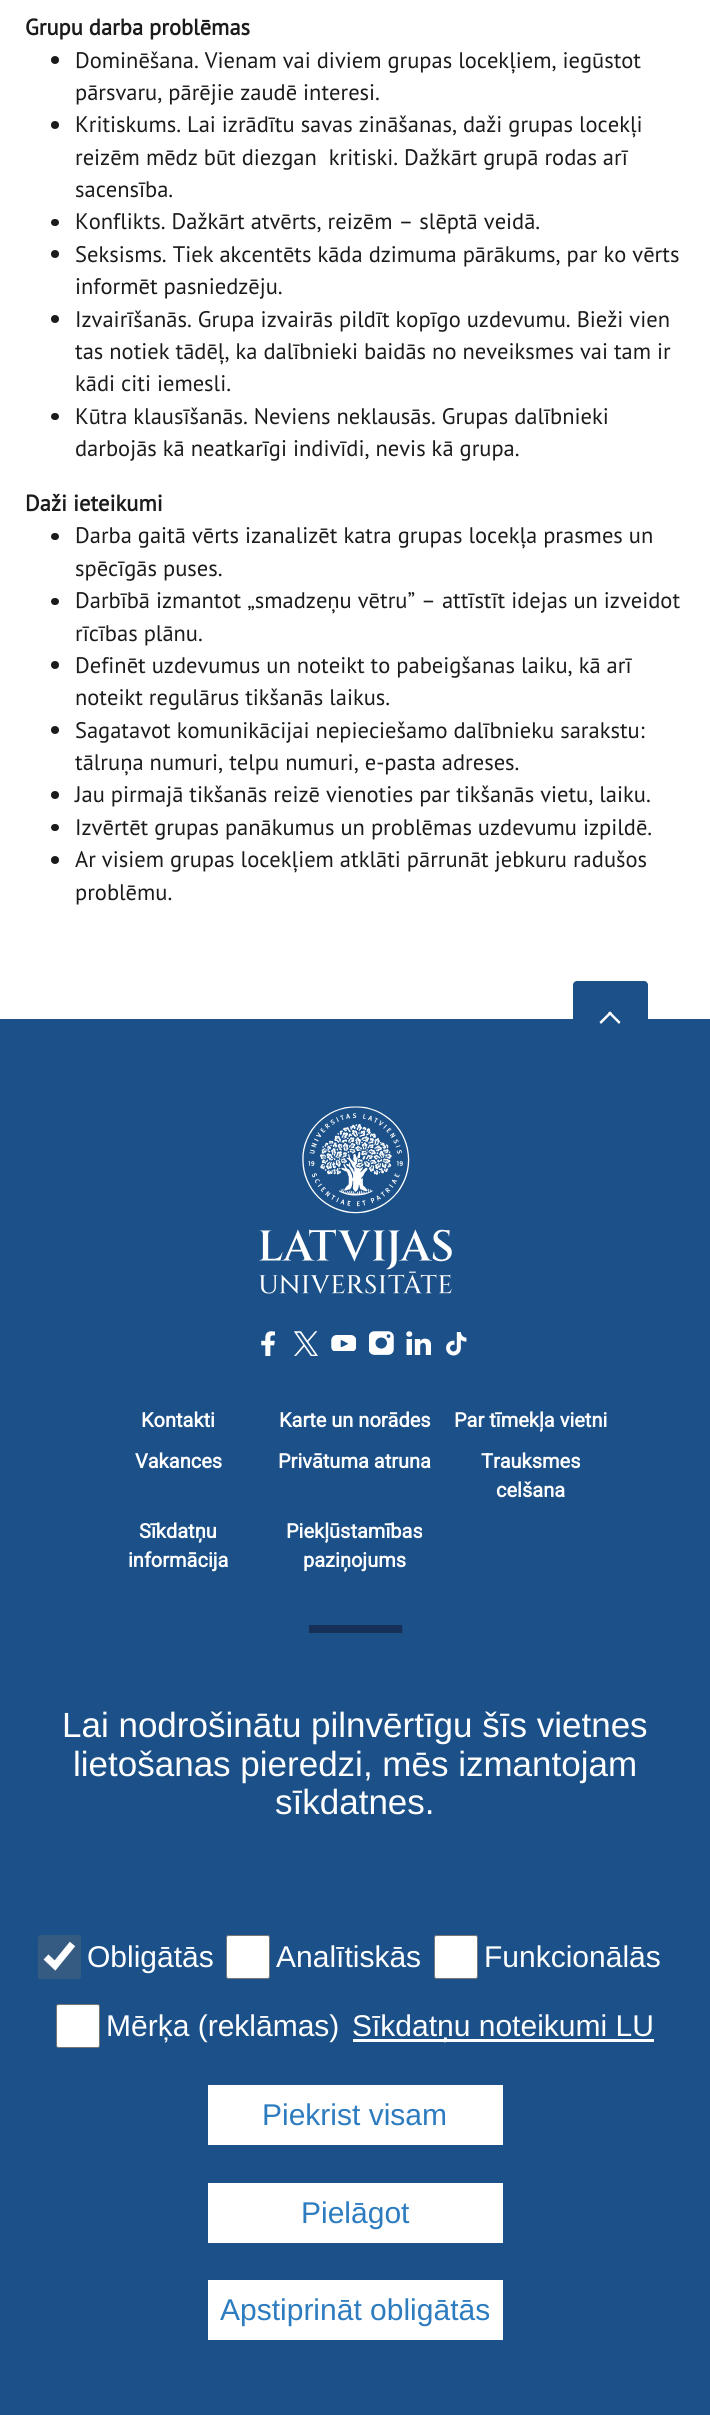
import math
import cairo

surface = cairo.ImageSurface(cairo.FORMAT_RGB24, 710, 2415)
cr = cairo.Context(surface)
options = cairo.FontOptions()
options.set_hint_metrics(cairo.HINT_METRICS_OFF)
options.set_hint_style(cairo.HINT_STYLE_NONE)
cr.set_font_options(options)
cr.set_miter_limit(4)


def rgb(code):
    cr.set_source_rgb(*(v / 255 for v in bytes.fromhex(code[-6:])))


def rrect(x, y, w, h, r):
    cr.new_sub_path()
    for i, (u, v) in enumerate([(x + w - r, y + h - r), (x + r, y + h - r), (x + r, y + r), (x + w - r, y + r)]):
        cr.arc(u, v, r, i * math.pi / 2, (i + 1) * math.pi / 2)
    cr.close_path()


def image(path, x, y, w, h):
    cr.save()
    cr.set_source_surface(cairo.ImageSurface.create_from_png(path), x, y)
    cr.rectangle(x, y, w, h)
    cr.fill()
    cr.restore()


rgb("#ffffff")
cr.paint()
rgb("#1b1b1b")
cr.arc(55, 60, 4, 0, 2 * math.pi)
cr.fill()
cr.arc(55, 125, 4, 0, 2 * math.pi)
cr.fill()
rrect(51, 219, 8, 7, 3.5)
cr.fill()
cr.arc(55, 254, 4, 0, 2 * math.pi)
cr.fill()
cr.arc(55, 319, 4, 0, 2 * math.pi)
cr.fill()
rrect(51, 413, 8, 7, 3.5)
cr.fill()
rrect(51, 533, 8, 7, 3.5)
cr.fill()
rrect(51, 598, 8, 7, 3.5)
cr.fill()
cr.arc(55, 665, 4, 0, 2 * math.pi)
cr.fill()
cr.arc(55, 730, 4, 0, 2 * math.pi)
cr.fill()
cr.arc(55, 795, 4, 0, 2 * math.pi)
cr.fill()
rrect(51, 824, 8, 7, 3.5)
cr.fill()
cr.arc(55, 860, 4, 0, 2 * math.pi)
cr.fill()
rgb("#1b5089")
cr.rectangle(0, 1019, 710, 1396)
cr.fill()
rrect(573, 981, 75, 75, 4)
cr.fill()
rgb("#ffffff")
cr.new_path()
cr.move_to(601, 1024)
cr.line_to(599.5, 1022)
cr.line_to(610, 1011.5)
cr.line_to(612, 1013)
cr.close_path()
cr.fill()
cr.new_path()
cr.move_to(619, 1024)
cr.line_to(608, 1013)
cr.line_to(610, 1011.5)
cr.line_to(620.5, 1022)
cr.close_path()
cr.fill()
image("img/1.png", 259, 1106, 193, 188)
image("img/2.png", 261, 1331, 14, 25)
image("img/3.png", 294, 1331, 24, 25)
image("img/4.png", 331, 1335, 25, 16)
image("img/5.png", 369, 1331, 25, 24)
image("img/6.png", 406, 1331, 25, 24)
image("img/7.png", 446, 1332, 21, 24)
image("img/8.png", 309, 1625, 94, 8)
rgb("#365b83")
rrect(38, 1935, 43, 44, 2.5)
cr.fill()
cr.new_path()
cr.move_to(46, 1957)
cr.line_to(55, 1965.5)
cr.line_to(72.5, 1944)
rgb("#ffffff")
cr.set_line_width(7)
cr.stroke()
rrect(226.5, 1935.5, 43, 43, 2)
cr.fill_preserve()
rgb("#767676")
cr.set_line_width(1)
cr.stroke()
rgb("#ffffff")
rrect(434.5, 1935.5, 43, 43, 2)
cr.fill_preserve()
rgb("#767676")
cr.stroke()
rgb("#ffffff")
rrect(56.5, 2004.5, 43, 43, 2)
cr.fill_preserve()
rgb("#767676")
cr.stroke()
for x, y, w, h, color in [
    (353, 2039, 301, 3, "#ffffff"),
    (208, 2085, 295, 60, "#ffffff"),
    (208, 2183, 295, 60, "#ffffff"),
    (208, 2280, 295, 60, "#ffffff"),
]:
    rgb(color)
    cr.rectangle(x, y, w, h)
    cr.fill()
cr.select_font_face("PT Sans", cairo.FONT_SLANT_NORMAL, cairo.FONT_WEIGHT_BOLD)
cr.set_font_size(22.5)
rgb("#1b1b1b")
cr.move_to(25, 35)
cr.show_text("Grupu darba problēmas")
cr.select_font_face("PT Sans")
for x, y, s in [
    (75, 68, "Dominēšana. Vienam vai diviem grupas locekļiem, iegūstot"),
    (75, 100, "pārsvaru, pārējie zaudē interesi."),
    (75, 132, "Kritiskums. Lai izrādītu savas zināšanas, daži grupas locekļi"),
    (75, 165, "reizēm mēdz būt diezgan  kritiski. Dažkārt grupā rodas arī"),
    (75, 197, "sacensība."),
    (75, 229, "Konflikts. Dažkārt atvērts, reizēm – slēptā veidā."),
    (75, 262, "Seksisms. Tiek akcentēts kāda dzimuma pārākums, par ko vērts"),
    (75, 294, "informēt pasniedzēju."),
    (75, 327, "Izvairīšanās. Grupa izvairās pildīt kopīgo uzdevumu. Bieži vien"),
    (75, 359, "tas notiek tādēļ, ka dalībnieki baidās no neveiksmes vai tam ir"),
    (75, 391, "kādi citi iemesli."),
    (75, 424, "Kūtra klausīšanās. Neviens neklausās. Grupas dalībnieki"),
    (75, 456, "darbojās kā neatkarīgi indivīdi, nevis kā grupa."),
]:
    cr.move_to(x, y)
    cr.show_text(s)
cr.select_font_face("PT Sans", cairo.FONT_SLANT_NORMAL, cairo.FONT_WEIGHT_BOLD)
cr.move_to(25, 511)
cr.show_text("Daži ieteikumi")
cr.select_font_face("PT Sans")
for x, y, s in [
    (75, 543, "Darba gaitā vērts izanalizēt katra grupas locekļa prasmes un"),
    (75, 576, "spēcīgās puses."),
    (75, 608, "Darbībā izmantot „smadzeņu vētru” – attīstīt idejas un izveidot"),
    (75, 641, "rīcības plānu."),
    (75, 673, "Definēt uzdevumus un noteikt to pabeigšanas laiku, kā arī"),
    (75, 705, "noteikt regulārus tikšanās laikus."),
    (75, 738, "Sagatavot komunikācijai nepieciešamo dalībnieku sarakstu:"),
    (75, 770, "tālruņa numuri, telpu numuri, e-pasta adreses."),
    (75, 802, "Jau pirmajā tikšanās reizē vienoties par tikšanās vietu, laiku."),
    (75, 835, "Izvērtēt grupas panākumus un problēmas uzdevumu izpildē."),
    (75, 867, "Ar visiem grupas locekļiem atklāti pārrunāt jebkuru radušos"),
    (75, 900, "problēmu."),
]:
    cr.move_to(x, y)
    cr.show_text(s)
cr.select_font_face("Roboto", cairo.FONT_SLANT_NORMAL, cairo.FONT_WEIGHT_BOLD)
cr.set_font_size(20)
rgb("#ffffff")
for x, y, s in [
    (141, 1427, "Kontakti"),
    (279, 1427, "Karte un norādes"),
    (454, 1427, "Par tīmekļa vietni"),
    (135, 1468, "Vakances"),
    (278, 1468, "Privātuma atruna"),
    (481, 1468, "Trauksmes"),
    (496, 1497, "celšana"),
    (139, 1538, "Sīkdatņu"),
    (128, 1567, "informācija"),
    (286, 1538, "Piekļūstamības"),
    (303, 1567, "paziņojums"),
]:
    cr.move_to(x, y)
    cr.show_text(s)
cr.select_font_face("Liberation Sans")
cr.set_font_size(35)
for x, y, s in [
    (62, 1737, "Lai nodrošinātu pilnvērtīgu šīs vietnes"),
    (73, 1776, "lietošanas pieredzi, mēs izmantojam"),
    (275, 1814, "sīkdatnes."),
]:
    cr.move_to(x, y)
    cr.show_text(s)
cr.set_font_size(30)
for x, y, s in [
    (87, 1967, "Obligātās"),
    (276, 1967, "Analītiskās"),
    (484, 1967, "Funkcionālās"),
    (106, 2036, "Mērķa (reklāmas)"),
    (352, 2036, "Sīkdatņu noteikumi LU"),
]:
    cr.move_to(x, y)
    cr.show_text(s)
rgb("#2c7cbf")
for x, y, s in [
    (262, 2125, "Piekrist visam"),
    (301, 2223, "Pielāgot"),
    (220, 2320, "Apstiprināt obligātās"),
]:
    cr.move_to(x, y)
    cr.show_text(s)
surface.write_to_png("page.png")
